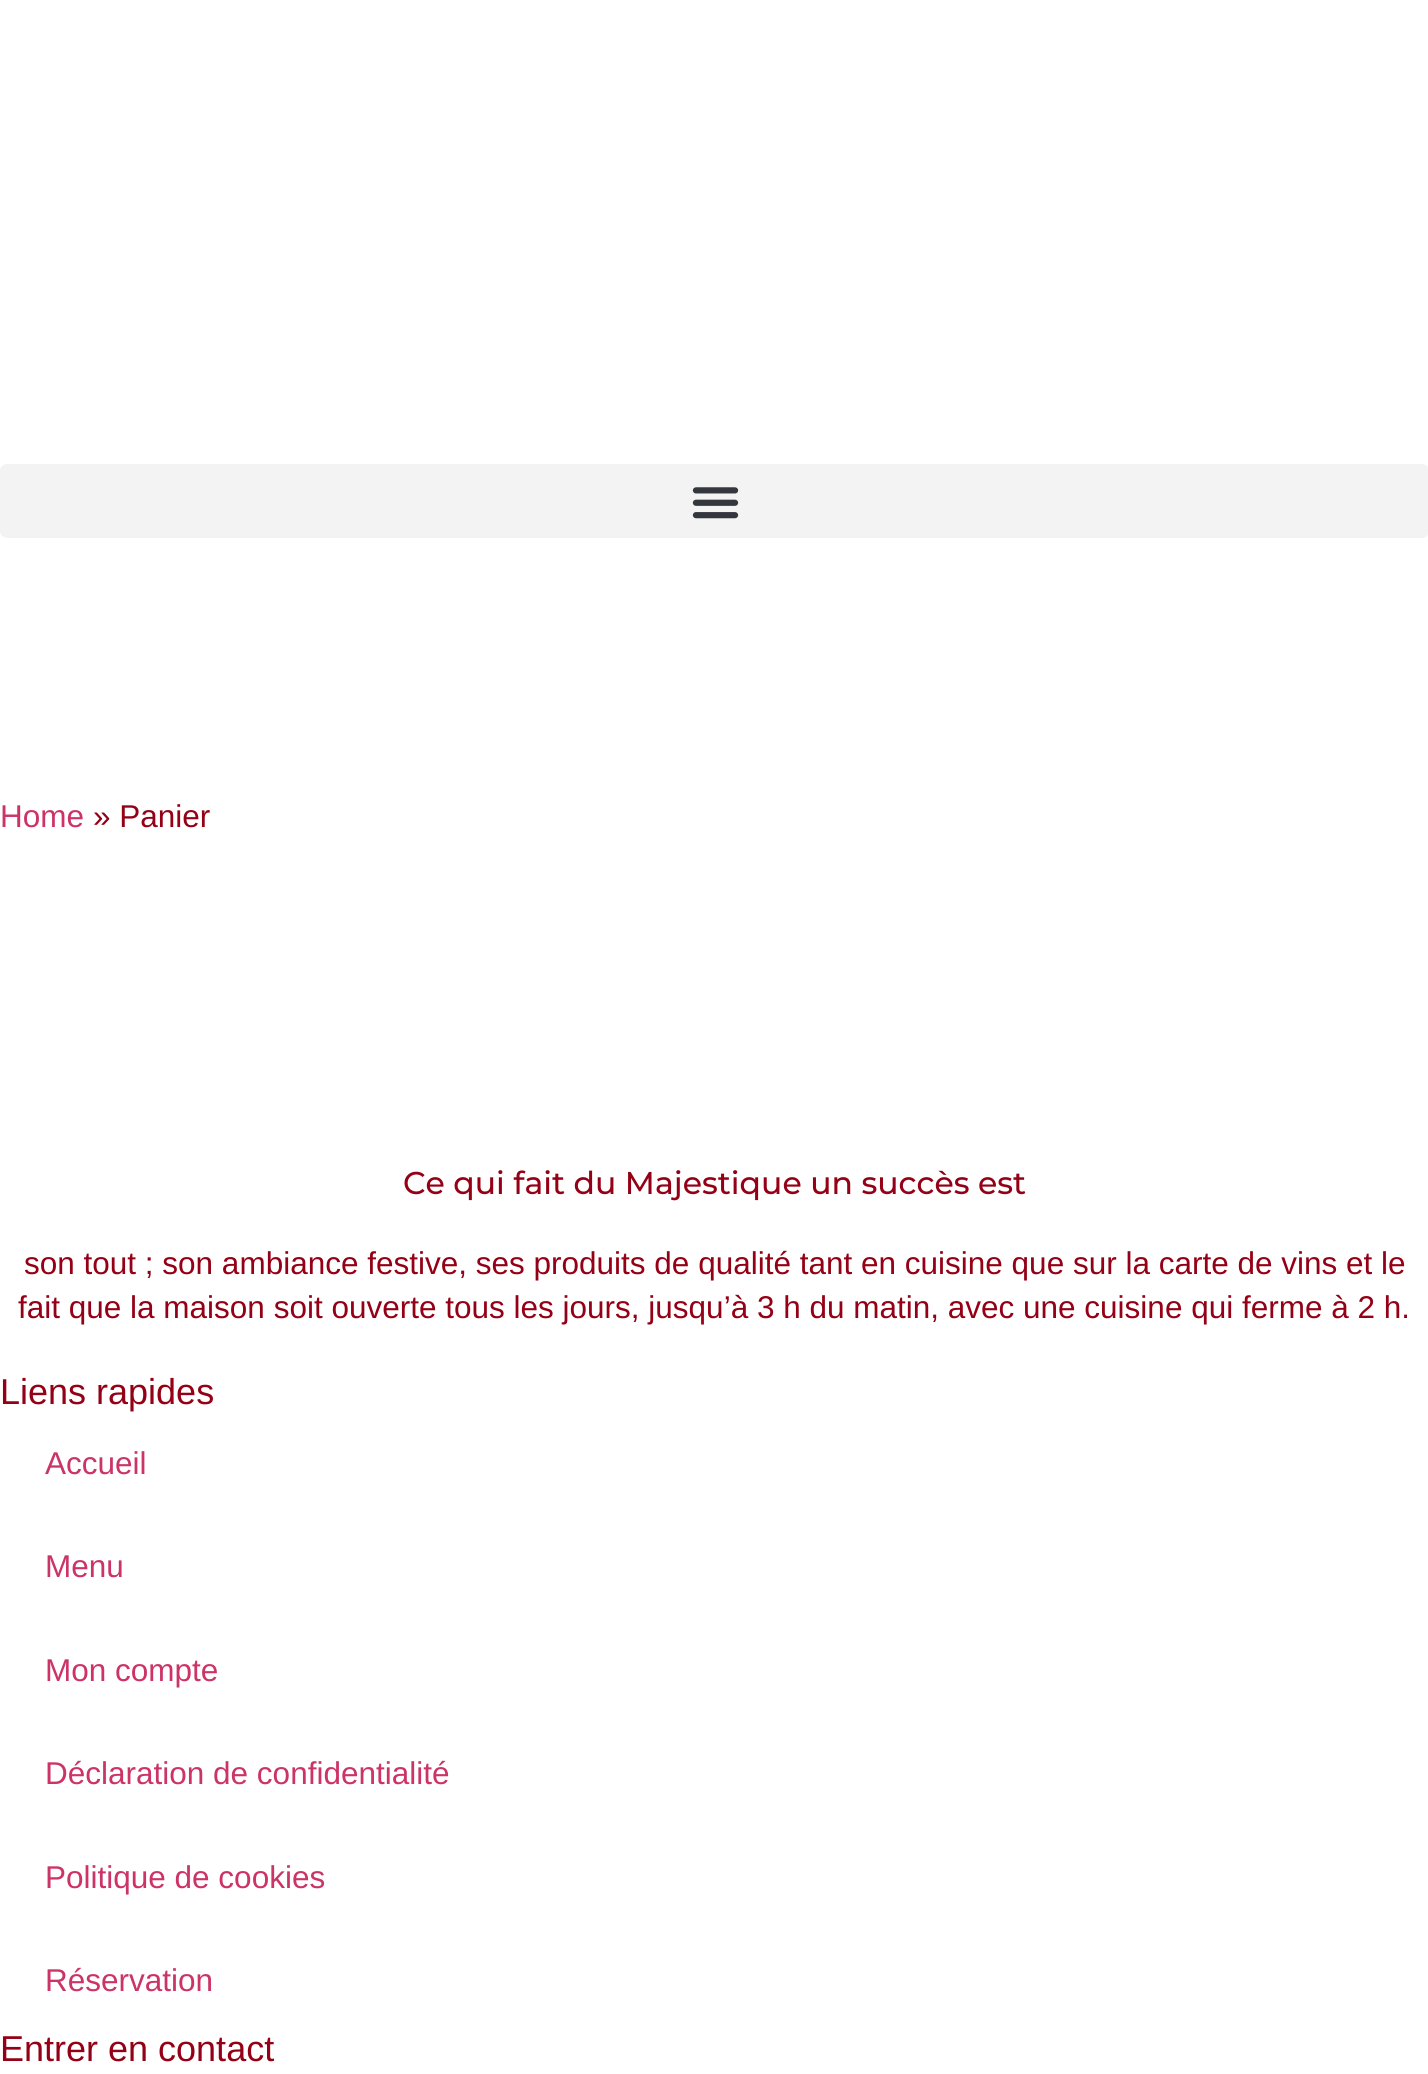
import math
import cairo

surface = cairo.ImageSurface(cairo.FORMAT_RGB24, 1428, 2074)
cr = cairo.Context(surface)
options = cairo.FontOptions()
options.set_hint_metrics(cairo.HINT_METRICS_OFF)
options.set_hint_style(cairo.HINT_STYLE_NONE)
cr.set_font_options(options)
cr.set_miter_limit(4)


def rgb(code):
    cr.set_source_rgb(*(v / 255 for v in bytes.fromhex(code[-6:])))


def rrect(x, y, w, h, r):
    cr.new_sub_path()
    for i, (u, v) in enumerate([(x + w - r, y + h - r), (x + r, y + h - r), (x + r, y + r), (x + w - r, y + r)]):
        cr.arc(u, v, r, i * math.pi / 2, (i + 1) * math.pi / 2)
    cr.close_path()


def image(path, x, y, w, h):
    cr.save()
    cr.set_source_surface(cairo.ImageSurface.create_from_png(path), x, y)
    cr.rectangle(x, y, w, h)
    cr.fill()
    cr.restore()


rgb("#ffffff")
cr.paint()
rgb("#f3f3f3")
rrect(0, 464, 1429, 74, 7)
cr.fill()
image("img/1.png", 692, 487, 47, 32)
cr.select_font_face("Liberation Sans")
cr.set_font_size(31.5)
rgb("#cc3366")
cr.move_to(0, 827)
cr.show_text("Home")
rgb("#940015")
cr.move_to(93, 827)
cr.show_text("» Panier")
cr.select_font_face("Montserrat Medium")
cr.move_to(403, 1194)
cr.show_text("Ce qui fait du Majestique un succès est")
cr.select_font_face("Liberation Sans")
cr.move_to(24, 1274)
cr.show_text("son tout ; son ambiance festive, ses produits de qualité tant en cuisine que sur la carte de vins et le")
cr.move_to(18, 1318)
cr.show_text("fait que la maison soit ouverte tous les jours, jusqu’à 3 h du matin, avec une cuisine qui ferme à 2 h.")
cr.set_font_size(36)
cr.move_to(0, 1404)
cr.show_text("Liens rapides")
cr.set_font_size(31.5)
rgb("#cc3366")
for x, y, s in [
    (45, 1474, "Accueil"),
    (45, 1577, "Menu"),
    (45, 1681, "Mon compte"),
    (45, 1784, "Déclaration de confidentialité"),
    (45, 1888, "Politique de cookies"),
    (45, 1991, "Réservation"),
]:
    cr.move_to(x, y)
    cr.show_text(s)
cr.set_font_size(36)
rgb("#940015")
cr.move_to(0, 2061)
cr.show_text("Entrer en contact")
surface.write_to_png("page.png")
